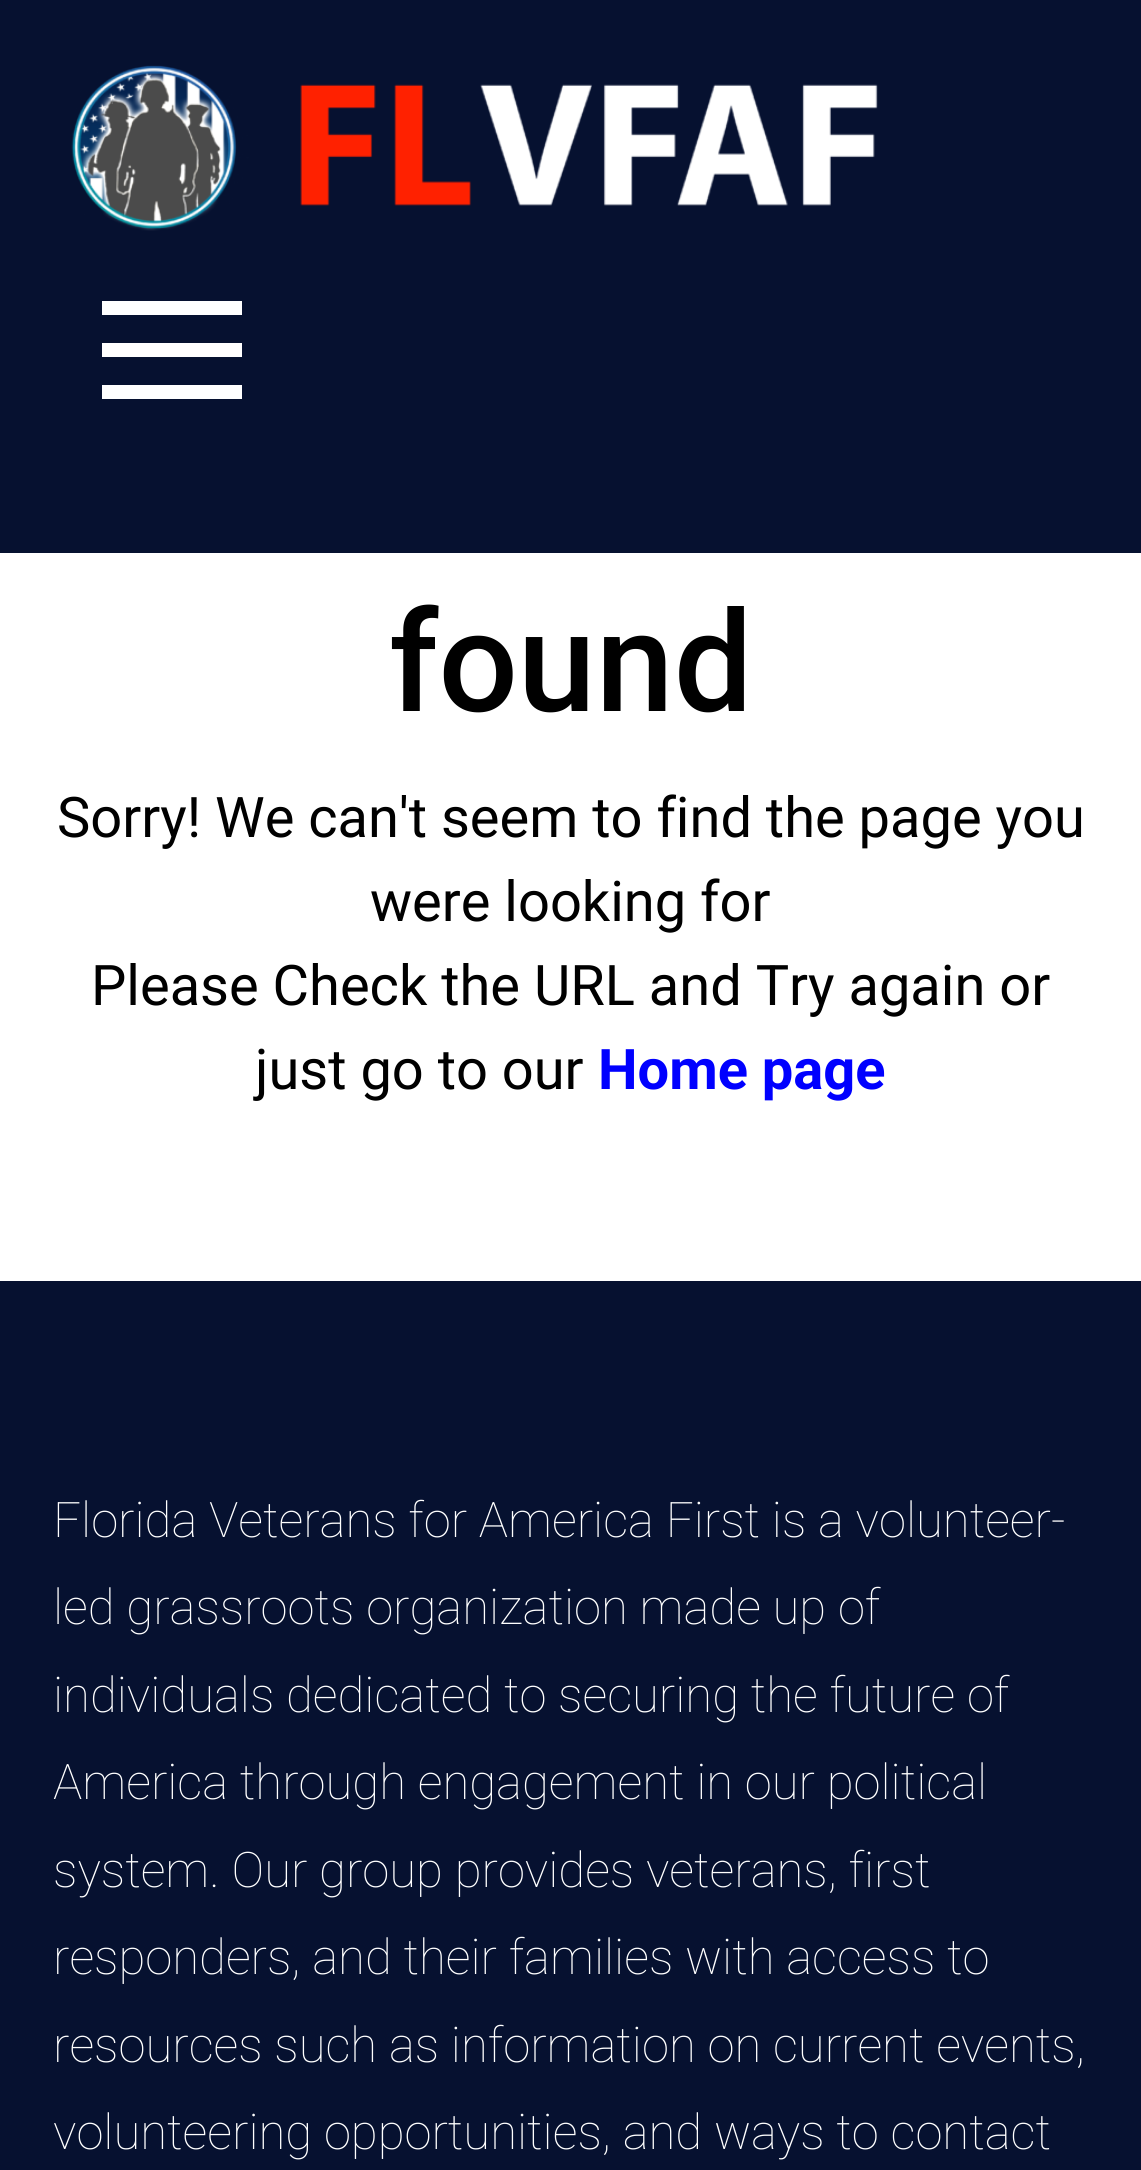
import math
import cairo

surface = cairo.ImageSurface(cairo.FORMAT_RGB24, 1141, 2170)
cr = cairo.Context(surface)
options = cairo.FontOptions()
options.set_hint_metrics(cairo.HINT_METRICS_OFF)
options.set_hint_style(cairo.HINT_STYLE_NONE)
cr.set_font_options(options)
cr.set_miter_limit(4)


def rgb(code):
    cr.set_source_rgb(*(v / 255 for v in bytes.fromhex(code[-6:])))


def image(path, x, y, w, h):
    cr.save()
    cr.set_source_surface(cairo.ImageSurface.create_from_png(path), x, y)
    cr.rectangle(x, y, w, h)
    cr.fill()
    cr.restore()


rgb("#ffffff")
cr.paint()
rgb("#061130")
cr.rectangle(0, 0, 1141, 553)
cr.fill()
image("img/1.png", 71, 65, 807, 166)
for x, y, w, h, color in [
    (102, 301, 140, 14, "#ffffff"),
    (102, 343, 140, 14, "#ffffff"),
    (102, 385, 140, 14, "#ffffff"),
    (0, 1281, 1141, 889, "#061130"),
]:
    rgb(color)
    cr.rectangle(x, y, w, h)
    cr.fill()
cr.select_font_face("Roboto Medium")
cr.set_font_size(140)
rgb("#000000")
cr.move_to(389, 711)
cr.show_text("found")
cr.select_font_face("Roboto")
cr.set_font_size(56)
for x, y, s in [
    (57, 837, "Sorry! We can't seem to find the page you"),
    (370, 921, "were looking for"),
    (91, 1005, "Please Check the URL and Try again or"),
    (255, 1089, "just go to our"),
]:
    cr.move_to(x, y)
    cr.show_text(s)
cr.select_font_face("Roboto", cairo.FONT_SLANT_NORMAL, cairo.FONT_WEIGHT_BOLD)
rgb("#0000ff")
cr.move_to(598, 1089)
cr.show_text("Home page")
cr.select_font_face("Roboto Thin")
cr.set_font_size(49)
rgb("#ffffff")
for x, y, s in [
    (53, 1537, "Florida Veterans for America First is a volunteer-"),
    (53, 1624, "led grassroots organization made up of"),
    (53, 1712, "individuals dedicated to securing the future of"),
    (53, 1799, "America through engagement in our political"),
    (53, 1887, "system. Our group provides veterans, first"),
    (53, 1974, "responders, and their families with access to"),
    (53, 2062, "resources such as information on current events,"),
    (53, 2149, "volunteering opportunities, and ways to contact"),
]:
    cr.move_to(x, y)
    cr.show_text(s)
surface.write_to_png("page.png")
